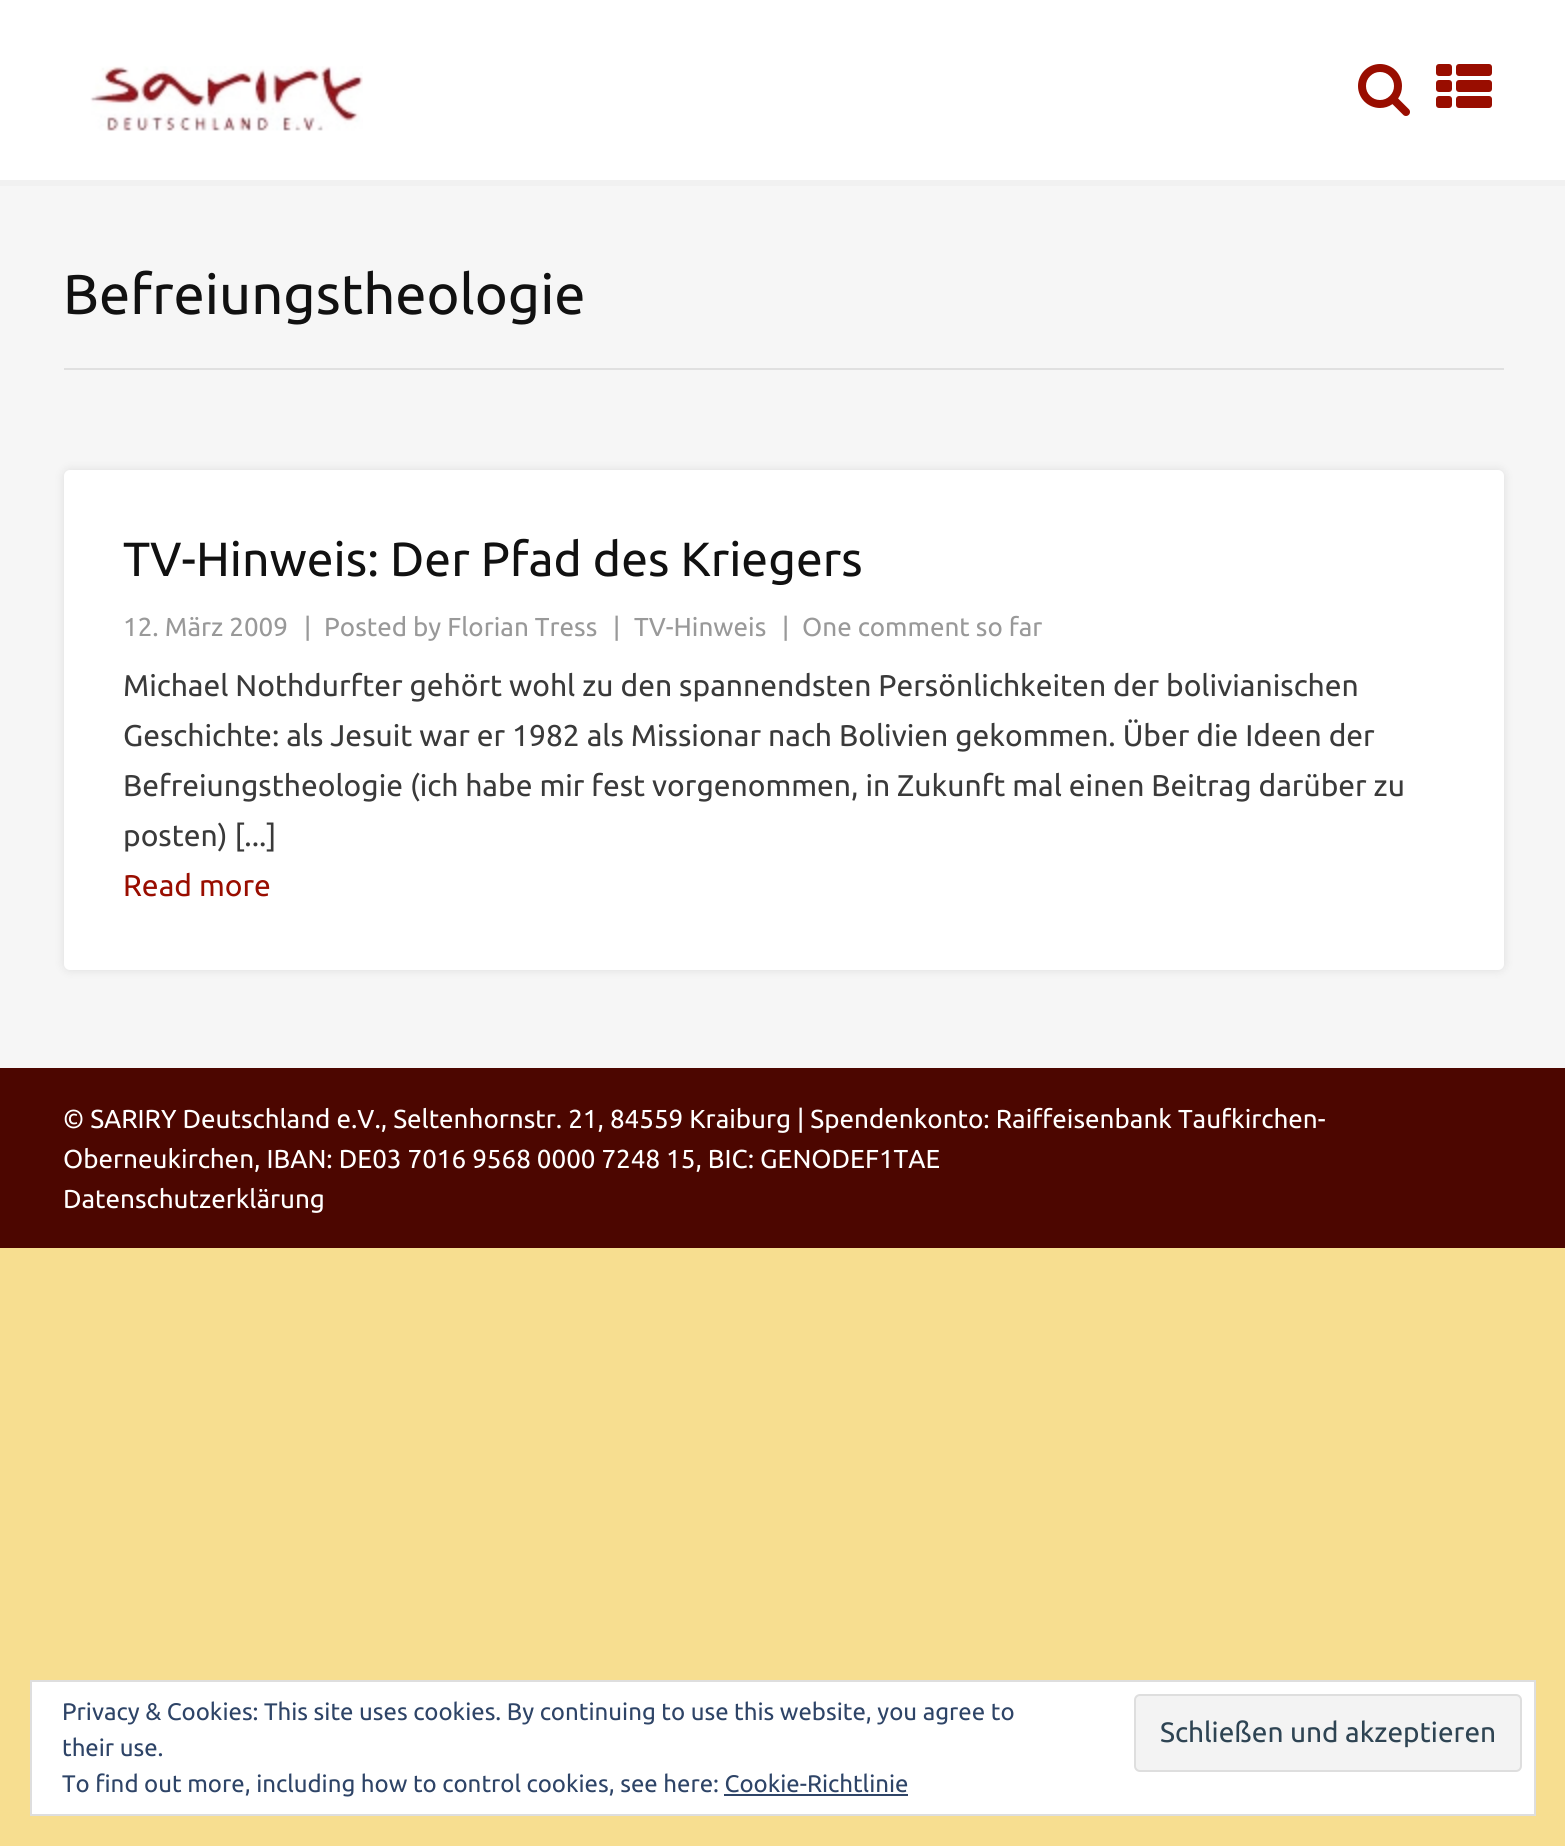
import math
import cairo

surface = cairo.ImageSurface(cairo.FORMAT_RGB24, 1565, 1846)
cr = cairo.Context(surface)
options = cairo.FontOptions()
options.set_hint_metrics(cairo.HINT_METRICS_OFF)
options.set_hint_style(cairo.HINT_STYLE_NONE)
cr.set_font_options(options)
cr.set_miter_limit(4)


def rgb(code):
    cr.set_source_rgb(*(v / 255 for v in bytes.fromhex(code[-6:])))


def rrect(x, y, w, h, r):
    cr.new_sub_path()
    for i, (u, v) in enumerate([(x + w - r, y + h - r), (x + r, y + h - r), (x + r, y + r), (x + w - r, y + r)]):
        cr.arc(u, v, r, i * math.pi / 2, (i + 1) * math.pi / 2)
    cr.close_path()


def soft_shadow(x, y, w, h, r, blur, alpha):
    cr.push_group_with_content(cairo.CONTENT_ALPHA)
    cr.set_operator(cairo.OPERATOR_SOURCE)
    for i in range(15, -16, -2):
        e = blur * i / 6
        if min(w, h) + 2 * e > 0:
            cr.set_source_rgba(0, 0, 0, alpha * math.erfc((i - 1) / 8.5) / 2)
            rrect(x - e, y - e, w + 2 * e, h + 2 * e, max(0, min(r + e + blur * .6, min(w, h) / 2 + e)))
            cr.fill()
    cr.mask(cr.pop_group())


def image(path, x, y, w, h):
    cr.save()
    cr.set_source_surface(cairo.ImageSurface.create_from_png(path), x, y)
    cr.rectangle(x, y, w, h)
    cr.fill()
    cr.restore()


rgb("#f7de90")
cr.paint()
rgb("#ffffff")
cr.rectangle(-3, -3, 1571, 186)
cr.fill_preserve()
rgb("#f1f1f1")
cr.set_line_width(6)
cr.stroke()
image("img/1.png", 90, 66, 273, 65)
image("img/2.png", 1358, 64, 52, 52)
image("img/3.png", 1436, 64, 56, 44)
rgb("#f6f6f6")
cr.rectangle(0, 186, 1565, 882)
cr.fill()
rgb("#e0e0e0")
cr.rectangle(64, 368, 1440, 2)
cr.fill()
rgb("#000000")
soft_shadow(64, 470, 1440, 500, 6, 5, 0.1)
rgb("#ffffff")
rrect(64, 470, 1440, 500, 6)
cr.fill()
rgb("#4c0600")
cr.rectangle(0, 1068, 1565, 180)
cr.fill()
rgb("#ffffff")
cr.rectangle(31, 1681, 1504, 134)
cr.fill_preserve()
rgb("#dedede")
cr.set_line_width(2)
cr.stroke()
rgb("#f3f3f3")
rrect(1135, 1695, 386, 76, 5)
cr.fill_preserve()
rgb("#dedede")
cr.stroke()
rgb("#2e4467")
cr.rectangle(724, 1794, 184, 2)
cr.fill()
cr.select_font_face("Ubuntu")
cr.set_font_size(56)
rgb("#111111")
cr.move_to(63, 314)
cr.show_text("Befreiungstheologie")
cr.set_font_size(48)
cr.move_to(123, 576)
cr.show_text("TV-Hinweis: Der Pfad des Kriegers")
cr.set_font_size(26)
rgb("#999999")
for x, y, s in [
    (123, 636, "12. März 2009"),
    (304, 636, "|"),
    (324, 636, "Posted by Florian Tress"),
    (613, 636, "|"),
    (634, 636, "TV-Hinweis"),
    (782, 636, "|"),
    (802, 636, "One comment so far"),
]:
    cr.move_to(x, y)
    cr.show_text(s)
cr.set_font_size(30)
rgb("#3a3a3a")
for x, y, s in [
    (123, 696, "Michael Nothdurfter gehört wohl zu den spannendsten Persönlichkeiten der bolivianischen"),
    (123, 746, "Geschichte: als Jesuit war er 1982 als Missionar nach Bolivien gekommen. Über die Ideen der"),
    (123, 796, "Befreiungstheologie (ich habe mir fest vorgenommen, in Zukunft mal einen Beitrag darüber zu"),
    (123, 846, "posten) [...]"),
]:
    cr.move_to(x, y)
    cr.show_text(s)
rgb("#990d00")
cr.move_to(123, 896)
cr.show_text("Read more")
cr.set_font_size(26)
rgb("#ffffff")
for x, y, s in [
    (63, 1128, "© SARIRY Deutschland e.V., Seltenhornstr. 21, 84559 Kraiburg | Spendenkonto: Raiffeisenbank Taufkirchen-"),
    (63, 1168, "Oberneukirchen, IBAN: DE03 7016 9568 0000 7248 15, BIC: GENODEF1TAE"),
    (63, 1208, "Datenschutzerklärung"),
]:
    cr.move_to(x, y)
    cr.show_text(s)
cr.set_font_size(24)
rgb("#2e4467")
cr.move_to(62, 1720)
cr.show_text("Privacy & Cookies: This site uses cookies. By continuing to use this website, you agree to")
cr.move_to(62, 1756)
cr.show_text("their use.")
cr.set_font_size(28)
rgb("#2e4453")
cr.move_to(1160, 1742)
cr.show_text("Schließen und akzeptieren")
cr.set_font_size(24)
rgb("#2e4467")
cr.move_to(62, 1792)
cr.show_text("To find out more, including how to control cookies, see here: Cookie-Richtlinie")
surface.write_to_png("page.png")
